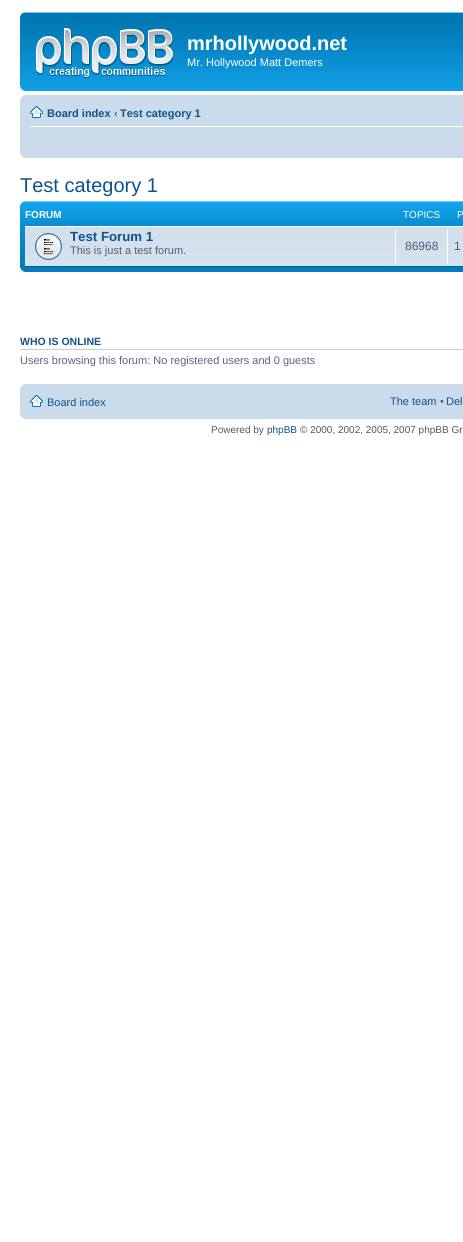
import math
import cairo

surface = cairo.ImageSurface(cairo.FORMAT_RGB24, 463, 1242)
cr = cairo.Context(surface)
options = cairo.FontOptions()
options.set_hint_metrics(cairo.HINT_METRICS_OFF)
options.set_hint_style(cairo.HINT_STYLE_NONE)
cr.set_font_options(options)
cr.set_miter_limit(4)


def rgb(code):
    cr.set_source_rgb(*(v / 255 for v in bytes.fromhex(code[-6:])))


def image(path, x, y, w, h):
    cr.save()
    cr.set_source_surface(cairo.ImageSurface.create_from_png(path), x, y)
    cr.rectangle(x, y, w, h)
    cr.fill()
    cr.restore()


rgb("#ffffff")
cr.paint()
image("img/1.png", 20, 12, 443, 79)
image("img/2.png", 20, 12, 5, 5)
image("img/3.png", 36, 28, 137, 50)
image("img/4.png", 20, 86, 5, 5)
rgb("#cadceb")
cr.rectangle(20, 95, 443, 63)
cr.fill()
image("img/5.png", 20, 95, 5, 5)
rgb("#ffffff")
cr.rectangle(30, 126, 433, 1)
cr.fill()
image("img/6.png", 30, 106, 13, 12)
image("img/7.png", 20, 153, 5, 5)
image("img/8.png", 20, 201, 443, 71)
image("img/9.png", 20, 201, 5, 5)
image("img/10.png", 25, 227, 438, 39)
cr.rectangle(25, 226, 438, 1)
cr.fill()
rgb("#00608f")
cr.rectangle(25, 266, 438, 1)
cr.fill()
image("img/11.png", 35, 233, 27, 27)
rgb("#ffffff")
cr.rectangle(395, 229, 1, 35)
cr.fill()
cr.rectangle(447, 229, 1, 35)
cr.fill()
image("img/12.png", 20, 267, 5, 5)
rgb("#cccccc")
cr.rectangle(20, 349, 443, 1)
cr.fill()
rgb("#cadceb")
cr.rectangle(20, 384, 443, 35)
cr.fill()
image("img/5.png", 20, 384, 5, 5)
image("img/6.png", 30, 395, 13, 12)
image("img/7.png", 20, 414, 5, 5)
cr.select_font_face("Liberation Sans", cairo.FONT_SLANT_NORMAL, cairo.FONT_WEIGHT_BOLD)
cr.set_font_size(20)
rgb("#ffffff")
cr.move_to(187, 50)
cr.show_text("mrhollywood.net")
cr.select_font_face("Liberation Sans")
cr.set_font_size(11)
cr.move_to(187, 66)
cr.show_text("Mr. Hollywood Matt Demers")
cr.select_font_face("Liberation Sans", cairo.FONT_SLANT_NORMAL, cairo.FONT_WEIGHT_BOLD)
rgb("#105289")
cr.move_to(47, 117)
cr.show_text("Board index")
rgb("#536482")
cr.move_to(114, 117)
cr.show_text("‹")
rgb("#105289")
cr.move_to(120, 117)
cr.show_text("Test category 1")
cr.select_font_face("Liberation Sans")
cr.set_font_size(20)
cr.move_to(20, 192)
cr.show_text("Test category 1")
cr.select_font_face("Liberation Sans", cairo.FONT_SLANT_NORMAL, cairo.FONT_WEIGHT_BOLD)
cr.set_font_size(10)
rgb("#ffffff")
cr.move_to(25, 218)
cr.show_text("FORUM")
cr.select_font_face("Liberation Sans")
cr.move_to(403, 218)
cr.show_text("TOPICS")
cr.move_to(457, 218)
cr.show_text("P")
cr.select_font_face("Liberation Sans", cairo.FONT_SLANT_NORMAL, cairo.FONT_WEIGHT_BOLD)
cr.set_font_size(13.25)
rgb("#105289")
cr.move_to(70, 241)
cr.show_text("Test Forum 1")
cr.select_font_face("Liberation Sans")
cr.set_font_size(11)
rgb("#4c5d77")
cr.move_to(70, 254)
cr.show_text("This is just a test forum.")
cr.set_font_size(12)
cr.move_to(405, 250)
cr.show_text("86968")
cr.move_to(454, 250)
cr.show_text("1")
cr.select_font_face("Liberation Sans", cairo.FONT_SLANT_NORMAL, cairo.FONT_WEIGHT_BOLD)
cr.set_font_size(10.5)
rgb("#105289")
cr.move_to(20, 345)
cr.show_text("WHO IS ONLINE")
cr.select_font_face("Liberation Sans")
cr.set_font_size(11)
rgb("#536482")
cr.move_to(20, 364)
cr.show_text("Users browsing this forum: No registered users and 0 guests")
rgb("#105289")
cr.move_to(47, 406)
cr.show_text("Board index")
cr.move_to(390, 405)
cr.show_text("The team")
rgb("#536482")
cr.move_to(440, 405)
cr.show_text("•")
rgb("#105289")
cr.move_to(446, 405)
cr.show_text("Del")
cr.set_font_size(10)
rgb("#555555")
cr.move_to(211, 433)
cr.show_text("Powered by")
rgb("#105289")
cr.move_to(267, 433)
cr.show_text("phpBB")
rgb("#555555")
cr.move_to(300, 433)
cr.show_text("© 2000, 2002, 2005, 2007 phpBB Gr")
surface.write_to_png("page.png")
